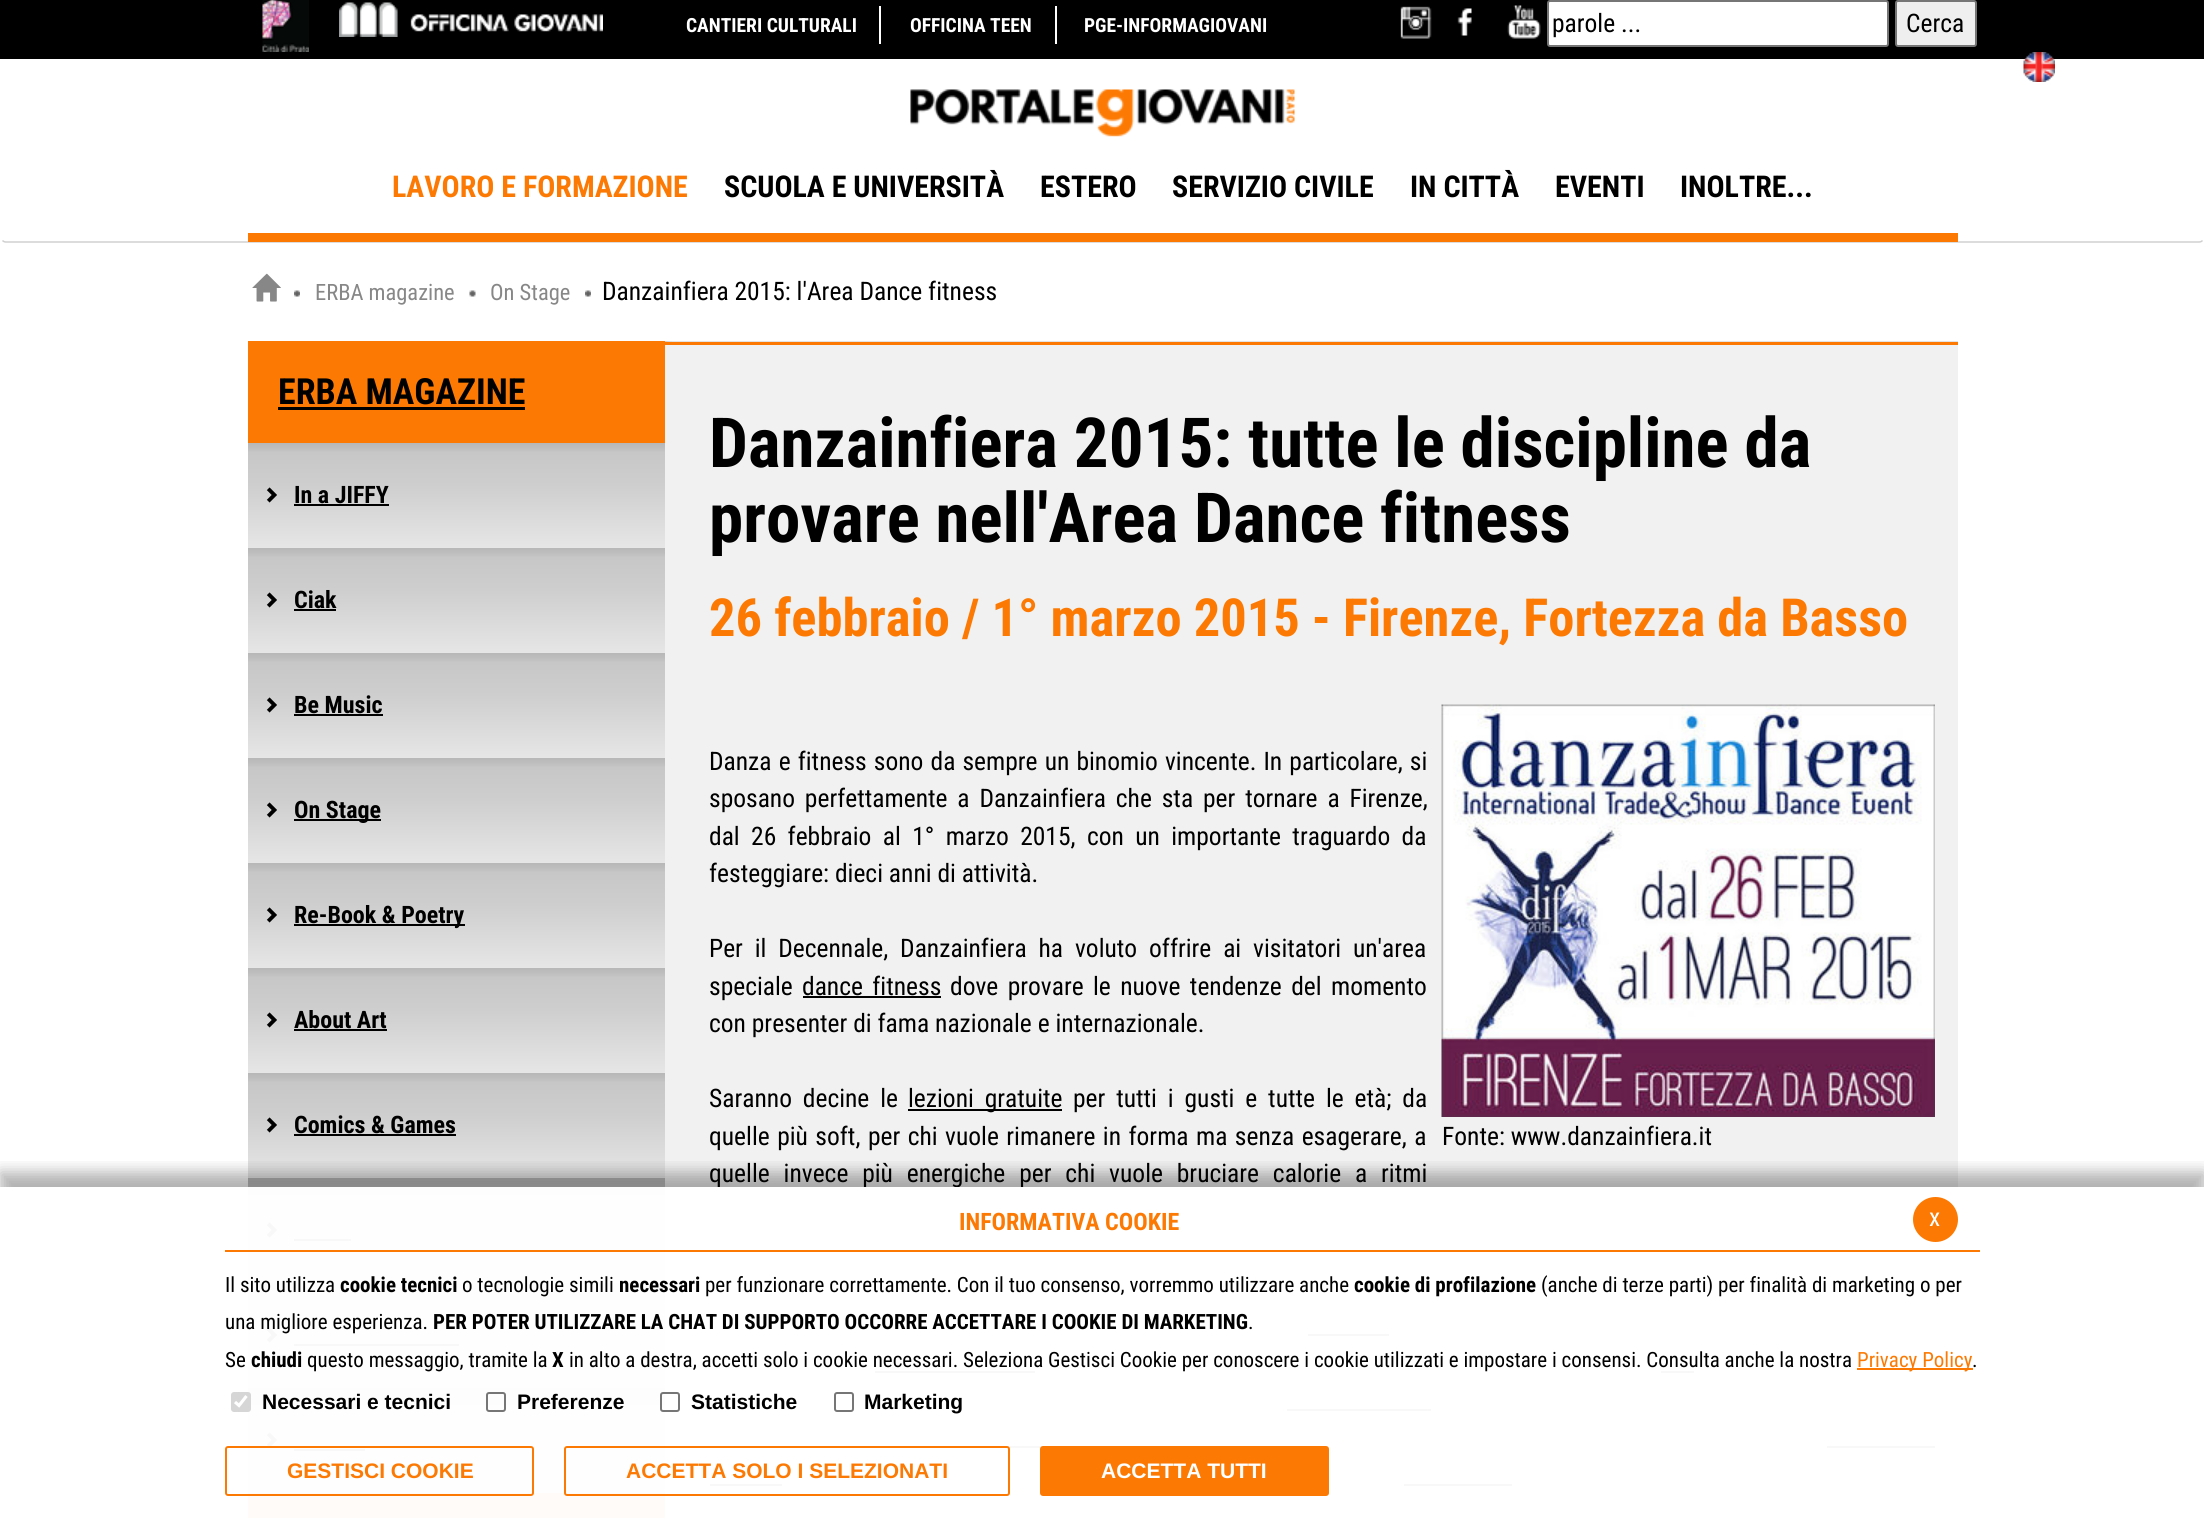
import math
import cairo

surface = cairo.ImageSurface(cairo.FORMAT_RGB24, 2204, 1518)
cr = cairo.Context(surface)
options = cairo.FontOptions()
options.set_hint_metrics(cairo.HINT_METRICS_OFF)
options.set_hint_style(cairo.HINT_STYLE_NONE)
cr.set_font_options(options)
cr.set_miter_limit(4)


def rgb(code):
    cr.set_source_rgb(*(v / 255 for v in bytes.fromhex(code[-6:])))


def tracked(x, y, s, letter, word):
    cr.move_to(x, y)
    for ch in s:
        cr.show_text(ch)
        cr.rel_move_to(letter + word * (ch == ' '), 0)


def rrect(x, y, w, h, r):
    cr.new_sub_path()
    for i, (u, v) in enumerate([(x + w - r, y + h - r), (x + r, y + h - r), (x + r, y + r), (x + w - r, y + r)]):
        cr.arc(u, v, r, i * math.pi / 2, (i + 1) * math.pi / 2)
    cr.close_path()


def soft_shadow(x, y, w, h, r, blur, alpha):
    cr.push_group_with_content(cairo.CONTENT_ALPHA)
    cr.set_operator(cairo.OPERATOR_SOURCE)
    for i in range(15, -16, -2):
        e = blur * i / 6
        if min(w, h) + 2 * e > 0:
            cr.set_source_rgba(0, 0, 0, alpha * math.erfc((i - 1) / 8.5) / 2)
            rrect(x - e, y - e, w + 2 * e, h + 2 * e, max(0, min(r + e + blur * .6, min(w, h) / 2 + e)))
            cr.fill()
    cr.mask(cr.pop_group())


def image(path, x, y, w, h):
    cr.save()
    cr.set_source_surface(cairo.ImageSurface.create_from_png(path), x, y)
    cr.rectangle(x, y, w, h)
    cr.fill()
    cr.restore()


rgb("#ffffff")
cr.paint()
rgb("#000000")
cr.rectangle(0, 0, 2204, 59)
cr.fill()
image("img/1.png", 262, 0, 47, 52)
image("img/2.png", 339, 2, 264, 35)
rgb("#ffffff")
cr.rectangle(879, 6, 2, 38)
cr.fill()
cr.rectangle(1055, 6, 2, 38)
cr.fill()
image("img/3.png", 1400, 6, 32, 33)
image("img/4.png", 1457, 8, 15, 28)
image("img/5.png", 1507, 5, 34, 34)
rrect(1548, 1, 340, 45, 2)
cr.fill_preserve()
rgb("#767676")
cr.stroke()
rgb("#efefef")
rrect(1896, 1, 80, 45, 2)
cr.fill_preserve()
rgb("#767676")
cr.stroke()
image("img/6.png", 2023, 52, 32, 30)
cr.new_path()
cr.move_to(2202.5, 240.5)
cr.curve_to(2201.5, 241.5, 2200.5, 242, 2199, 242)
cr.line_to(6, 242)
cr.curve_to(4.5, 242, 3.5, 241.5, 2.5, 240.5)
rgb("#cfcfcf")
cr.set_line_width(1.5)
cr.stroke()
image("img/7.png", 910, 89, 385, 48)
rgb("#fc7a03")
cr.rectangle(248, 233, 1710, 9)
cr.fill()
image("img/8.png", 252, 273, 29, 29)
image("img/9.png", 294, 290, 6, 7)
image("img/10.png", 469, 290, 7, 7)
image("img/9.png", 585, 290, 6, 7)
rgb("#e3e3e3")
cr.rectangle(665, 341, 1293, 1)
cr.fill()
cr.save()
cr.rectangle(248, 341, 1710, 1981)
cr.clip()
rgb("#000000")
soft_shadow(248, 342, 417, 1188, 0, 4, 0.3)
cr.restore()
rgb("#fc7a03")
cr.rectangle(248, 341, 417, 102)
cr.fill()
rgb("#000000")
cr.rectangle(278, 407, 247, 3)
cr.fill()
gradient = cairo.LinearGradient(456, 443, 456, 548)
gradient.add_color_stop_rgba(0, 0.718, 0.718, 0.718, 1)
gradient.add_color_stop_rgba(0.04, 0.741, 0.741, 0.741, 1)
gradient.add_color_stop_rgba(0.07, 0.761, 0.761, 0.761, 1)
gradient.add_color_stop_rgba(0.09, 0.78, 0.78, 0.78, 1)
gradient.add_color_stop_rgba(0.4, 0.808, 0.808, 0.808, 1)
gradient.add_color_stop_rgba(1, 0.902, 0.902, 0.902, 1)
cr.set_source(gradient)
cr.rectangle(248, 443, 417, 105)
cr.fill()
image("img/11.png", 266, 487, 11, 16)
rgb("#000000")
cr.rectangle(294, 504, 95, 2)
cr.fill()
gradient = cairo.LinearGradient(456, 548, 456, 653)
gradient.add_color_stop_rgba(0, 0.718, 0.718, 0.718, 1)
gradient.add_color_stop_rgba(0.04, 0.741, 0.741, 0.741, 1)
gradient.add_color_stop_rgba(0.07, 0.761, 0.761, 0.761, 1)
gradient.add_color_stop_rgba(0.09, 0.78, 0.78, 0.78, 1)
gradient.add_color_stop_rgba(0.4, 0.808, 0.808, 0.808, 1)
gradient.add_color_stop_rgba(1, 0.902, 0.902, 0.902, 1)
cr.set_source(gradient)
cr.rectangle(248, 548, 417, 105)
cr.fill()
image("img/11.png", 266, 592, 11, 16)
rgb("#000000")
cr.rectangle(294, 609, 42, 2)
cr.fill()
gradient = cairo.LinearGradient(456, 653, 456, 758)
gradient.add_color_stop_rgba(0, 0.718, 0.718, 0.718, 1)
gradient.add_color_stop_rgba(0.04, 0.741, 0.741, 0.741, 1)
gradient.add_color_stop_rgba(0.07, 0.761, 0.761, 0.761, 1)
gradient.add_color_stop_rgba(0.09, 0.78, 0.78, 0.78, 1)
gradient.add_color_stop_rgba(0.4, 0.808, 0.808, 0.808, 1)
gradient.add_color_stop_rgba(1, 0.902, 0.902, 0.902, 1)
cr.set_source(gradient)
cr.rectangle(248, 653, 417, 105)
cr.fill()
image("img/11.png", 266, 697, 11, 16)
rgb("#000000")
cr.rectangle(294, 714, 89, 2)
cr.fill()
gradient = cairo.LinearGradient(456, 758, 456, 863)
gradient.add_color_stop_rgba(0, 0.718, 0.718, 0.718, 1)
gradient.add_color_stop_rgba(0.04, 0.741, 0.741, 0.741, 1)
gradient.add_color_stop_rgba(0.07, 0.761, 0.761, 0.761, 1)
gradient.add_color_stop_rgba(0.09, 0.78, 0.78, 0.78, 1)
gradient.add_color_stop_rgba(0.4, 0.808, 0.808, 0.808, 1)
gradient.add_color_stop_rgba(1, 0.902, 0.902, 0.902, 1)
cr.set_source(gradient)
cr.rectangle(248, 758, 417, 105)
cr.fill()
image("img/11.png", 266, 802, 11, 16)
rgb("#000000")
cr.rectangle(294, 819, 87, 2)
cr.fill()
gradient = cairo.LinearGradient(456, 863, 456, 968)
gradient.add_color_stop_rgba(0, 0.718, 0.718, 0.718, 1)
gradient.add_color_stop_rgba(0.04, 0.741, 0.741, 0.741, 1)
gradient.add_color_stop_rgba(0.07, 0.761, 0.761, 0.761, 1)
gradient.add_color_stop_rgba(0.09, 0.78, 0.78, 0.78, 1)
gradient.add_color_stop_rgba(0.4, 0.808, 0.808, 0.808, 1)
gradient.add_color_stop_rgba(1, 0.902, 0.902, 0.902, 1)
cr.set_source(gradient)
cr.rectangle(248, 863, 417, 105)
cr.fill()
image("img/11.png", 266, 907, 11, 16)
rgb("#000000")
cr.rectangle(294, 924, 171, 2)
cr.fill()
gradient = cairo.LinearGradient(456, 968, 456, 1073)
gradient.add_color_stop_rgba(0, 0.718, 0.718, 0.718, 1)
gradient.add_color_stop_rgba(0.04, 0.741, 0.741, 0.741, 1)
gradient.add_color_stop_rgba(0.07, 0.761, 0.761, 0.761, 1)
gradient.add_color_stop_rgba(0.09, 0.78, 0.78, 0.78, 1)
gradient.add_color_stop_rgba(0.4, 0.808, 0.808, 0.808, 1)
gradient.add_color_stop_rgba(1, 0.902, 0.902, 0.902, 1)
cr.set_source(gradient)
cr.rectangle(248, 968, 417, 105)
cr.fill()
image("img/11.png", 266, 1012, 11, 16)
rgb("#000000")
cr.rectangle(294, 1029, 93, 2)
cr.fill()
gradient = cairo.LinearGradient(456, 1073, 456, 1178)
gradient.add_color_stop_rgba(0, 0.718, 0.718, 0.718, 1)
gradient.add_color_stop_rgba(0.04, 0.741, 0.741, 0.741, 1)
gradient.add_color_stop_rgba(0.07, 0.761, 0.761, 0.761, 1)
gradient.add_color_stop_rgba(0.09, 0.78, 0.78, 0.78, 1)
gradient.add_color_stop_rgba(0.4, 0.808, 0.808, 0.808, 1)
gradient.add_color_stop_rgba(1, 0.902, 0.902, 0.902, 1)
cr.set_source(gradient)
cr.rectangle(248, 1073, 417, 105)
cr.fill()
image("img/11.png", 266, 1117, 11, 16)
rgb("#000000")
cr.rectangle(294, 1134, 162, 2)
cr.fill()
gradient = cairo.LinearGradient(456, 1178, 456, 1283)
gradient.add_color_stop_rgba(0, 0.718, 0.718, 0.718, 1)
gradient.add_color_stop_rgba(0.04, 0.741, 0.741, 0.741, 1)
gradient.add_color_stop_rgba(0.07, 0.761, 0.761, 0.761, 1)
gradient.add_color_stop_rgba(0.09, 0.78, 0.78, 0.78, 1)
gradient.add_color_stop_rgba(0.4, 0.808, 0.808, 0.808, 1)
gradient.add_color_stop_rgba(1, 0.902, 0.902, 0.902, 1)
cr.set_source(gradient)
cr.rectangle(248, 1178, 417, 105)
cr.fill()
image("img/11.png", 266, 1222, 11, 16)
rgb("#000000")
cr.rectangle(294, 1239, 57, 2)
cr.fill()
gradient = cairo.LinearGradient(456, 1283, 456, 1388)
gradient.add_color_stop_rgba(0, 0.718, 0.718, 0.718, 1)
gradient.add_color_stop_rgba(0.04, 0.741, 0.741, 0.741, 1)
gradient.add_color_stop_rgba(0.07, 0.761, 0.761, 0.761, 1)
gradient.add_color_stop_rgba(0.09, 0.78, 0.78, 0.78, 1)
gradient.add_color_stop_rgba(0.4, 0.808, 0.808, 0.808, 1)
gradient.add_color_stop_rgba(1, 0.902, 0.902, 0.902, 1)
cr.set_source(gradient)
cr.rectangle(248, 1283, 417, 105)
cr.fill()
image("img/11.png", 266, 1327, 11, 16)
rgb("#000000")
cr.rectangle(294, 1344, 165, 2)
cr.fill()
gradient = cairo.LinearGradient(456, 1388, 456, 1493)
gradient.add_color_stop_rgba(0, 0.718, 0.718, 0.718, 1)
gradient.add_color_stop_rgba(0.04, 0.741, 0.741, 0.741, 1)
gradient.add_color_stop_rgba(0.07, 0.761, 0.761, 0.761, 1)
gradient.add_color_stop_rgba(0.09, 0.78, 0.78, 0.78, 1)
gradient.add_color_stop_rgba(0.4, 0.808, 0.808, 0.808, 1)
gradient.add_color_stop_rgba(1, 0.902, 0.902, 0.902, 1)
cr.set_source(gradient)
cr.rectangle(248, 1388, 417, 105)
cr.fill()
image("img/12.png", 266, 1432, 11, 14)
for x, y, w, h, color in [
    (294, 1449, 71, 2, "#000000"),
    (248, 1493, 417, 25, "#fc7a03"),
    (665, 345, 1293, 1173, "#f1f1f1"),
    (665, 342, 1293, 3, "#fc7a03"),
    (803, 996, 138, 2, "#000000"),
    (908, 1109, 154, 2, "#000000"),
    (1308, 1334, 81, 2, "#000000"),
    (875, 1371, 160, 2, "#000000"),
    (1661, 1371, 33, 2, "#000000"),
    (1287, 1409, 144, 2, "#000000"),
    (1007, 1446, 36, 2, "#000000"),
    (1827, 1446, 108, 2, "#000000"),
    (710, 1484, 72, 2, "#000000"),
    (1404, 1484, 108, 2, "#000000"),
]:
    rgb(color)
    cr.rectangle(x, y, w, h)
    cr.fill()
image("img/13.png", 1441, 704, 494, 413)
cr.save()
cr.rectangle(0, 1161, 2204, 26)
cr.clip()
rgb("#000000")
soft_shadow(0, 1172, 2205, 331, 0, 7.5, 0.3)
cr.restore()
cr.select_font_face("Roboto Condensed", cairo.FONT_SLANT_NORMAL, cairo.FONT_WEIGHT_BOLD)
cr.set_font_size(19.5)
rgb("#ffffff")
for x, y, s in [
    (686, 32, "CANTIERI CULTURALI"),
    (910, 32, "OFFICINA TEEN"),
    (1084, 32, "PGE-INFORMAGIOVANI"),
]:
    cr.move_to(x, y)
    cr.show_text(s)
cr.select_font_face("Roboto Condensed")
cr.set_font_size(25.5)
rgb("#000000")
cr.move_to(1552, 32)
cr.show_text("parole ...")
cr.move_to(1906, 32)
cr.show_text("Cerca")
cr.select_font_face("Roboto Condensed", cairo.FONT_SLANT_NORMAL, cairo.FONT_WEIGHT_BOLD)
cr.set_font_size(30)
rgb("#fc7a03")
cr.move_to(392, 197)
cr.show_text("LAVORO E FORMAZIONE")
rgb("#000000")
for x, y, s in [
    (724, 197, "SCUOLA E UNIVERSITÀ"),
    (1040, 197, "ESTERO"),
    (1172, 197, "SERVIZIO CIVILE"),
    (1410, 197, "IN CITTÀ"),
    (1555, 197, "EVENTI"),
    (1680, 197, "INOLTRE..."),
]:
    cr.move_to(x, y)
    cr.show_text(s)
cr.select_font_face("Roboto Condensed")
cr.set_font_size(22.5)
rgb("#878787")
cr.move_to(315, 300)
cr.show_text("ERBA magazine")
cr.move_to(490, 300)
cr.show_text("On Stage")
cr.set_font_size(25.5)
rgb("#000000")
cr.move_to(602, 300)
cr.show_text("Danzainfiera 2015: l'Area Dance fitness")
cr.select_font_face("Roboto Condensed", cairo.FONT_SLANT_NORMAL, cairo.FONT_WEIGHT_BOLD)
cr.set_font_size(36)
cr.move_to(278, 404)
cr.show_text("ERBA MAGAZINE")
cr.set_font_size(24)
for x, y, s in [
    (294, 503, "In a JIFFY"),
    (294, 608, "Ciak"),
    (294, 713, "Be Music"),
    (294, 818, "On Stage"),
    (294, 923, "Re-Book & Poetry"),
    (294, 1028, "About Art"),
    (294, 1133, "Comics & Games"),
]:
    cr.move_to(x, y)
    cr.show_text(s)
cr.set_font_size(69)
cr.move_to(709, 467)
cr.show_text("Danzainfiera 2015: tutte le discipline da")
cr.move_to(709, 542)
cr.show_text("provare nell'Area Dance fitness")
cr.set_font_size(52.5)
rgb("#fc7a03")
cr.move_to(709, 636)
cr.show_text("26 febbraio / 1° marzo 2015 - Firenze, Fortezza da Basso")
cr.select_font_face("Roboto Condensed")
cr.set_font_size(25.5)
rgb("#000000")
tracked(709, 770, "Danza e fitness sono da sempre un binomio vincente. In particolare, si", 0, 1.25)
tracked(709, 807, "sposano perfettamente a Danzainfiera che sta per tornare a Firenze,", 0, 4)
tracked(709, 845, "dal 26 febbraio al 1° marzo 2015, con un importante traguardo da", 0, 5.5)
cr.move_to(709, 882)
cr.show_text("festeggiare: dieci anni di attività.")
tracked(709, 957, "Per il Decennale, Danzainfiera ha voluto offrire ai visitatori un'area", 0, 6)
cr.move_to(709, 995)
cr.show_text("speciale")
tracked(802, 995, "dance fitness", 0, 3.5)
tracked(950, 995, "dove provare le nuove tendenze del momento", 0, 3.5)
cr.move_to(709, 1032)
cr.show_text("con presenter di fama nazionale e internazionale.")
for x, y, s in [
    (709, 1107, "Saranno decine le"),
    (908, 1107, "lezioni gratuite"),
    (1073, 1107, "per tutti i gusti e tutte le età; da"),
]:
    tracked(x, y, s, 0, 5)
tracked(709, 1145, "quelle più soft, per chi vuole rimanere in forma ma senza esagerare, a", 0, 1.6)
tracked(709, 1182, "quelle invece più energiche per chi vuole bruciare calorie a ritmi", 0, 8)
cr.move_to(1442, 1145)
cr.show_text("Fonte: www.danzainfiera.it")
cr.set_source_rgba(1, 1, 1, 0.97)
cr.rectangle(248, 1187, 1710, 331)
cr.fill()
rgb("#fc7a03")
cr.rectangle(225, 1250, 1755, 2)
cr.fill()
cr.select_font_face("Roboto Condensed", cairo.FONT_SLANT_NORMAL, cairo.FONT_WEIGHT_BOLD)
cr.set_font_size(24)
cr.move_to(959, 1230)
cr.show_text("INFORMATIVA COOKIE")
cr.select_font_face("Roboto Condensed")
cr.set_font_size(21)
rgb("#000000")
cr.move_to(225, 1292)
cr.show_text("Il sito utilizza")
cr.select_font_face("Roboto Condensed", cairo.FONT_SLANT_NORMAL, cairo.FONT_WEIGHT_BOLD)
cr.move_to(340, 1292)
cr.show_text("cookie tecnici")
cr.select_font_face("Roboto Condensed")
cr.move_to(462, 1292)
cr.show_text("o tecnologie simili")
cr.select_font_face("Roboto Condensed", cairo.FONT_SLANT_NORMAL, cairo.FONT_WEIGHT_BOLD)
cr.move_to(619, 1292)
cr.show_text("necessari")
cr.select_font_face("Roboto Condensed")
cr.move_to(705, 1292)
cr.show_text("per funzionare correttamente. Con il tuo consenso, vorremmo utilizzare anche")
cr.select_font_face("Roboto Condensed", cairo.FONT_SLANT_NORMAL, cairo.FONT_WEIGHT_BOLD)
cr.move_to(1354, 1292)
cr.show_text("cookie di profilazione")
cr.select_font_face("Roboto Condensed")
cr.move_to(1541, 1292)
cr.show_text("(anche di terze parti) per finalità di marketing o per")
cr.move_to(225, 1329)
cr.show_text("una migliore esperienza.")
cr.select_font_face("Roboto Condensed", cairo.FONT_SLANT_NORMAL, cairo.FONT_WEIGHT_BOLD)
cr.move_to(433, 1329)
cr.show_text("PER POTER UTILIZZARE LA CHAT DI SUPPORTO OCCORRE ACCETTARE I COOKIE DI MARKETING")
cr.select_font_face("Roboto Condensed")
cr.move_to(1248, 1329)
cr.show_text(".")
cr.move_to(225, 1367)
cr.show_text("Se")
cr.select_font_face("Roboto Condensed", cairo.FONT_SLANT_NORMAL, cairo.FONT_WEIGHT_BOLD)
cr.move_to(251, 1367)
cr.show_text("chiudi")
cr.select_font_face("Roboto Condensed")
cr.move_to(307, 1367)
cr.show_text("questo messaggio, tramite la")
cr.select_font_face("Roboto Condensed", cairo.FONT_SLANT_NORMAL, cairo.FONT_WEIGHT_BOLD)
cr.move_to(552, 1367)
cr.show_text("X")
cr.select_font_face("Roboto Condensed")
cr.move_to(569, 1367)
cr.show_text("in alto a destra, accetti solo i cookie necessari. Seleziona Gestisci Cookie per conoscere i cookie utilizzati e impostare i consensi. Consulta anche la nostra")
rgb("#fc7a03")
cr.rectangle(1857, 1368, 116, 2)
cr.fill()
cr.move_to(1857, 1367)
cr.show_text("Privacy Policy")
rgb("#000000")
cr.move_to(1972, 1367)
cr.show_text(".")
rgb("#d6d6d6")
rrect(231, 1392, 20, 20, 3)
cr.fill()
cr.new_path()
cr.move_to(235, 1402)
cr.line_to(239, 1405.5)
cr.line_to(246.5, 1396)
rgb("#ffffff")
cr.set_line_width(3.1)
cr.stroke()
cr.select_font_face("Liberation Sans", cairo.FONT_SLANT_NORMAL, cairo.FONT_WEIGHT_BOLD)
rgb("#000000")
cr.move_to(262, 1409)
cr.show_text("Necessari e tecnici")
rrect(487, 1393, 18, 18, 2)
rgb("#767676")
cr.set_line_width(2)
cr.stroke()
rgb("#000000")
cr.move_to(517, 1409)
cr.show_text("Preferenze")
rrect(661, 1393, 18, 18, 2)
rgb("#767676")
cr.stroke()
rgb("#000000")
cr.move_to(691, 1409)
cr.show_text("Statistiche")
rrect(835, 1393, 18, 18, 2)
rgb("#767676")
cr.stroke()
rgb("#000000")
cr.move_to(864, 1409)
cr.show_text("Marketing")
rrect(226, 1447, 307, 48, 2)
rgb("#fc7a03")
cr.stroke()
cr.move_to(287, 1478)
cr.show_text("GESTISCI COOKIE")
rrect(565, 1447, 444, 48, 2)
cr.stroke()
cr.move_to(626, 1478)
cr.show_text("ACCETTA SOLO I SELEZIONATI")
rrect(1041, 1447, 287, 48, 2)
cr.fill_preserve()
cr.stroke()
rgb("#ffffff")
cr.move_to(1101, 1478)
cr.show_text("ACCETTA TUTTI")
rgb("#fc7a03")
cr.new_path()
cr.arc(1935.5, 1219.5, 22.5, 0, 2 * math.pi)
cr.fill()
cr.select_font_face("Roboto Condensed")
cr.set_font_size(25.5)
rgb("#ffffff")
cr.move_to(1929, 1226)
cr.show_text("x")
surface.write_to_png("page.png")
